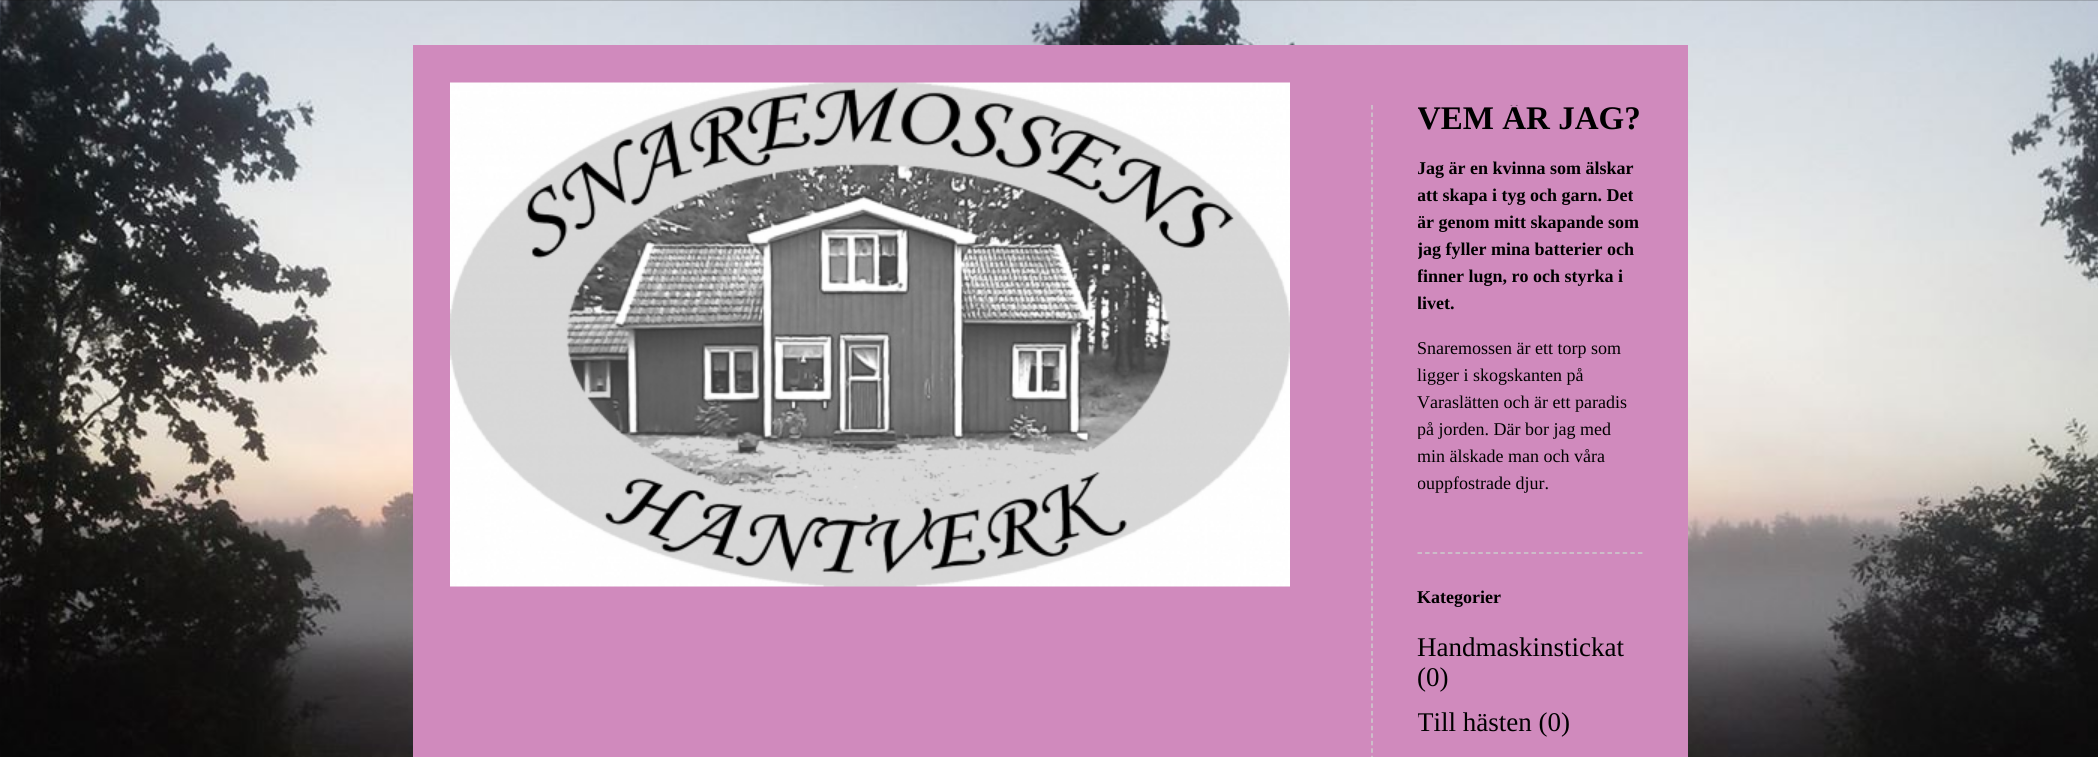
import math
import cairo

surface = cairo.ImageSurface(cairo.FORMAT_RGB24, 2098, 757)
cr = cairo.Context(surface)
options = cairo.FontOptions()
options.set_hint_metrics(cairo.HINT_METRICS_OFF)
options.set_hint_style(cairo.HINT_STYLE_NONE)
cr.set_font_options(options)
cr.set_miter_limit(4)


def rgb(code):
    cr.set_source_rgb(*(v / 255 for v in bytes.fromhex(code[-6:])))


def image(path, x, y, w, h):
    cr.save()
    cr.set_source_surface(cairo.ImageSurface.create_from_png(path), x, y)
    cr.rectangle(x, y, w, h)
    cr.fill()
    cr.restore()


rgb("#ffffff")
cr.paint()
image("img/1.png", 0, 0, 2098, 757)
rgb("#d08abd")
cr.rectangle(413, 45, 1275, 712)
cr.fill()
image("img/2.png", 450, 82, 840, 505)
cr.new_path()
cr.move_to(1372, 105)
cr.line_to(1372, 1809)
rgb("#cccccc")
cr.set_line_width(1.5)
cr.set_dash([4.5, 2.98])
cr.stroke()
cr.new_path()
cr.move_to(1417.5, 553)
cr.line_to(1642.5, 553)
cr.set_dash([4.5, 3.1])
cr.stroke()
cr.save()
cr.rectangle(1418, 105, 225, 447)
cr.clip()
cr.select_font_face("Liberation Serif", cairo.FONT_SLANT_NORMAL, cairo.FONT_WEIGHT_BOLD)
cr.set_font_size(33)
rgb("#000000")
cr.move_to(1417, 129)
cr.show_text("VEM ÄR JAG?")
cr.set_font_size(18)
for x, y, s in [
    (1417, 174, "Jag är en kvinna som älskar"),
    (1417, 201, "att skapa i tyg och garn. Det"),
    (1417, 228, "är genom mitt skapande som"),
    (1417, 255, "jag fyller mina batterier och"),
    (1417, 282, "finner lugn, ro och styrka i"),
    (1417, 309, "livet."),
]:
    cr.move_to(x, y)
    cr.show_text(s)
cr.restore()
cr.select_font_face("Liberation Serif")
cr.set_font_size(18)
rgb("#000000")
for x, y, s in [
    (1417, 354, "Snaremossen är ett torp som"),
    (1417, 381, "ligger i skogskanten på"),
    (1417, 408, "Varaslätten och är ett paradis"),
]:
    cr.move_to(x, y)
    cr.show_text(s)
cr.save()
cr.rectangle(1418, 105, 225, 447)
cr.clip()
for x, y, s in [
    (1417, 435, "på jorden. Där bor jag med"),
    (1417, 462, "min älskade man och våra"),
    (1417, 489, "ouppfostrade djur."),
]:
    cr.move_to(x, y)
    cr.show_text(s)
cr.restore()
cr.select_font_face("Liberation Serif", cairo.FONT_SLANT_NORMAL, cairo.FONT_WEIGHT_BOLD)
cr.move_to(1417, 603)
cr.show_text("Kategorier")
cr.select_font_face("Liberation Serif")
cr.set_font_size(27)
cr.move_to(1417, 656)
cr.show_text("Handmaskinstickat")
cr.move_to(1417, 686)
cr.show_text("(0)")
cr.save()
cr.rectangle(1418, 584, 225, 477)
cr.clip()
cr.move_to(1417, 731)
cr.show_text("Till hästen (0)")
cr.restore()
surface.write_to_png("page.png")
